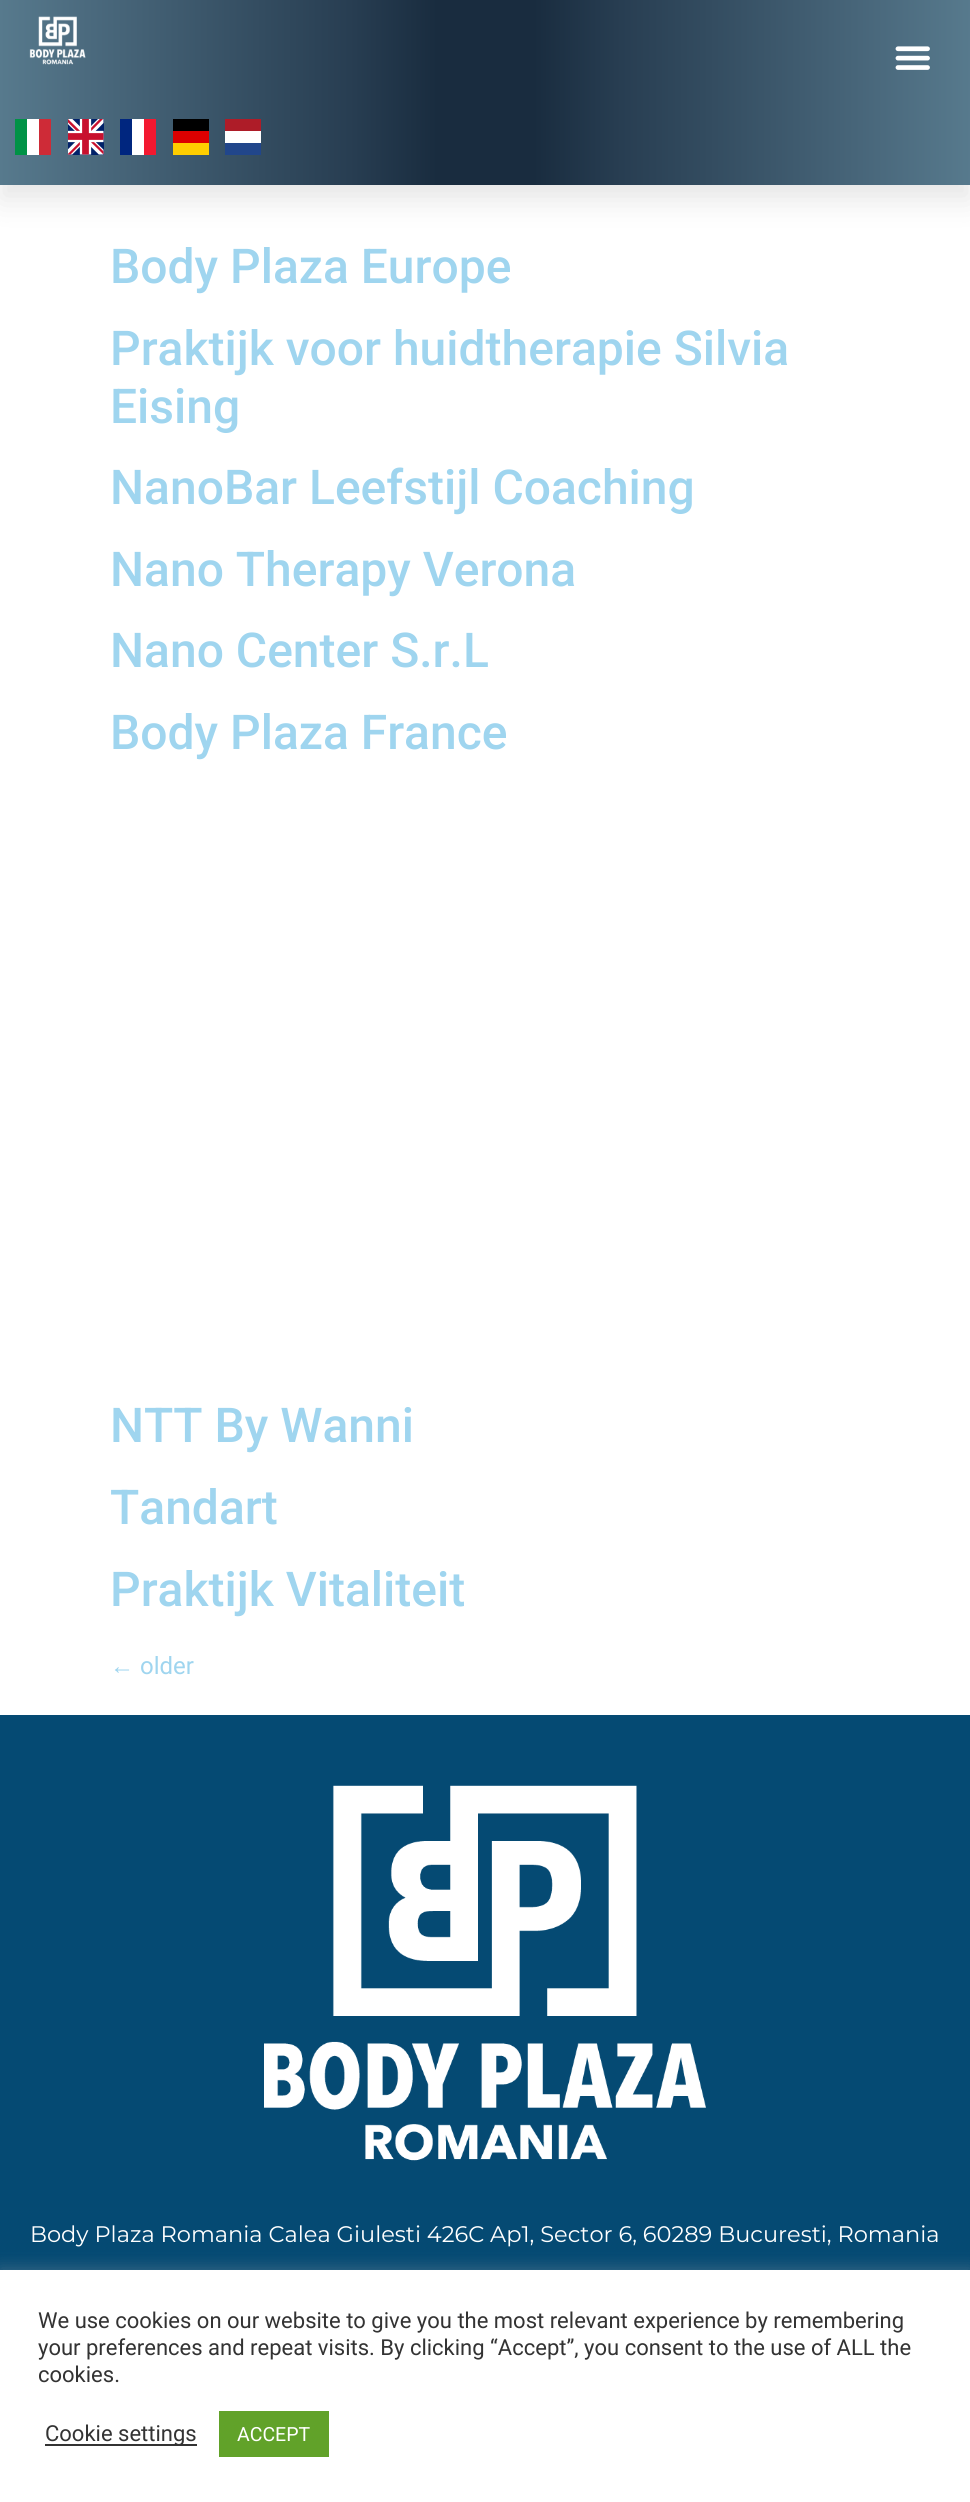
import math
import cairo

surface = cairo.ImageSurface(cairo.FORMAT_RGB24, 970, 2502)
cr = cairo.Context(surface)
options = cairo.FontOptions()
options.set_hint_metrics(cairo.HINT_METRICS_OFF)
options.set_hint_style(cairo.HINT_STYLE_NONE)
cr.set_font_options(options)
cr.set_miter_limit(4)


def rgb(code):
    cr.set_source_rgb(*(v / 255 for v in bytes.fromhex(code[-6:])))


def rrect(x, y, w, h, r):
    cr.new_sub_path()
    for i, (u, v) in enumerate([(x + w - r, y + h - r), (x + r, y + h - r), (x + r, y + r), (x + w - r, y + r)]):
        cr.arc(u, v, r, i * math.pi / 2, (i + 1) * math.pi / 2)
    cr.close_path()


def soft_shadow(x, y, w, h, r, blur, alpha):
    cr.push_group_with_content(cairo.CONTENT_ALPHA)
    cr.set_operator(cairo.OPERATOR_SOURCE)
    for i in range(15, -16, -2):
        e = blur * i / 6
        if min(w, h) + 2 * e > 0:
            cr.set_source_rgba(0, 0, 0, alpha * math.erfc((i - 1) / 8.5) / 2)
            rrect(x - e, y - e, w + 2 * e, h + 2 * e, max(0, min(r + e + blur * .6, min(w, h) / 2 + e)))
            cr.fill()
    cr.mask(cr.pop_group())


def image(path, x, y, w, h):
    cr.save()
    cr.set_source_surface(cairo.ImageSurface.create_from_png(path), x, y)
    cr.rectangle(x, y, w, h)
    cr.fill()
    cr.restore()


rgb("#ffffff")
cr.paint()
rgb("#000000")
soft_shadow(0, 15, 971, 185, 0, 15, 0.1)
gradient = cairo.LinearGradient(0, 92, 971, 92)
gradient.add_color_stop_rgba(0, 0.341, 0.478, 0.553, 1)
gradient.add_color_stop_rgba(0.09, 0.294, 0.416, 0.494, 1)
gradient.add_color_stop_rgba(0.18, 0.247, 0.357, 0.435, 1)
gradient.add_color_stop_rgba(0.27, 0.2, 0.298, 0.376, 1)
gradient.add_color_stop_rgba(0.36, 0.157, 0.243, 0.322, 1)
gradient.add_color_stop_rgba(0.45, 0.098, 0.173, 0.247, 1)
gradient.add_color_stop_rgba(0.55, 0.098, 0.173, 0.247, 1)
gradient.add_color_stop_rgba(0.64, 0.157, 0.243, 0.322, 1)
gradient.add_color_stop_rgba(0.73, 0.2, 0.298, 0.376, 1)
gradient.add_color_stop_rgba(0.82, 0.247, 0.357, 0.435, 1)
gradient.add_color_stop_rgba(0.91, 0.294, 0.416, 0.494, 1)
gradient.add_color_stop_rgba(1, 0.341, 0.478, 0.553, 1)
cr.set_source(gradient)
cr.rectangle(0, 0, 970, 185)
cr.fill()
image("img/1.png", 29, 16, 57, 49)
image("img/2.png", 895, 46, 35, 24)
for x, y, w, h, color in [
    (27, 119, 12, 36, "#ffffff"),
    (15, 119, 12, 36, "#009246"),
    (39, 119, 12, 36, "#ce2b37"),
]:
    rgb(color)
    cr.rectangle(x, y, w, h)
    cr.fill()
image("img/3.png", 68, 119, 36, 36)
for x, y, w, h, color in [
    (132, 119, 12, 36, "#ffffff"),
    (120, 119, 12, 36, "#00267f"),
    (144, 119, 12, 36, "#f31830"),
    (173, 143, 36, 12, "#ffce00"),
    (173, 119, 36, 12, "#000000"),
    (173, 131, 36, 12, "#dd0000"),
    (225, 143, 36, 12, "#21468b"),
    (225, 131, 36, 12, "#ffffff"),
    (225, 119, 36, 12, "#ae1c28"),
    (0, 1715, 970, 555, "#054a73"),
]:
    rgb(color)
    cr.rectangle(x, y, w, h)
    cr.fill()
image("img/4.png", 264, 1785, 442, 376)
rgb("#acabab")
soft_shadow(0, 2268, 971, 233, 0, 7.5, 0.3)
for x, y, w, h, color in [
    (0, 2270, 970, 232, "#ffffff"),
    (45, 2444, 152, 2, "#333333"),
    (219, 2411, 110, 46, "#61a229"),
]:
    rgb(color)
    cr.rectangle(x, y, w, h)
    cr.fill()
cr.select_font_face("Roboto Medium")
cr.set_font_size(48)
rgb("#9fd5ef")
for x, y, s in [
    (110, 283, "Body Plaza Europe"),
    (110, 365, "Praktijk voor huidtherapie Silvia"),
    (110, 423, "Eising"),
    (110, 504, "NanoBar Leefstijl Coaching"),
    (110, 586, "Nano Therapy Verona"),
    (110, 667, "Nano Center S.r.L"),
    (110, 749, "Body Plaza France"),
    (110, 1442, "NTT By Wanni"),
    (110, 1524, "Tandart"),
    (110, 1606, "Praktijk Vitaliteit"),
]:
    cr.move_to(x, y)
    cr.show_text(s)
cr.select_font_face("Liberation Sans")
cr.set_font_size(24)
cr.move_to(110, 1674)
cr.show_text("←")
cr.select_font_face("Roboto")
cr.move_to(140, 1674)
cr.show_text("older")
cr.select_font_face("Montserrat")
cr.set_font_size(22.5)
rgb("#ffffff")
cr.move_to(30, 2242)
cr.show_text("Body Plaza Romania Calea Giulesti 426C Ap1, Sector 6, 60289 Bucuresti, Romania")
cr.select_font_face("Roboto")
cr.set_font_size(22)
rgb("#333333")
for x, y, s in [
    (38, 2328, "We use cookies on our website to give you the most relevant experience by remembering"),
    (38, 2355, "your preferences and repeat visits. By clicking “Accept”, you consent to the use of ALL the"),
    (38, 2382, "cookies."),
    (45, 2441, "Cookie settings"),
]:
    cr.move_to(x, y)
    cr.show_text(s)
cr.set_font_size(19.5)
rgb("#ffffff")
cr.move_to(237, 2441)
cr.show_text("ACCEPT")
surface.write_to_png("page.png")
